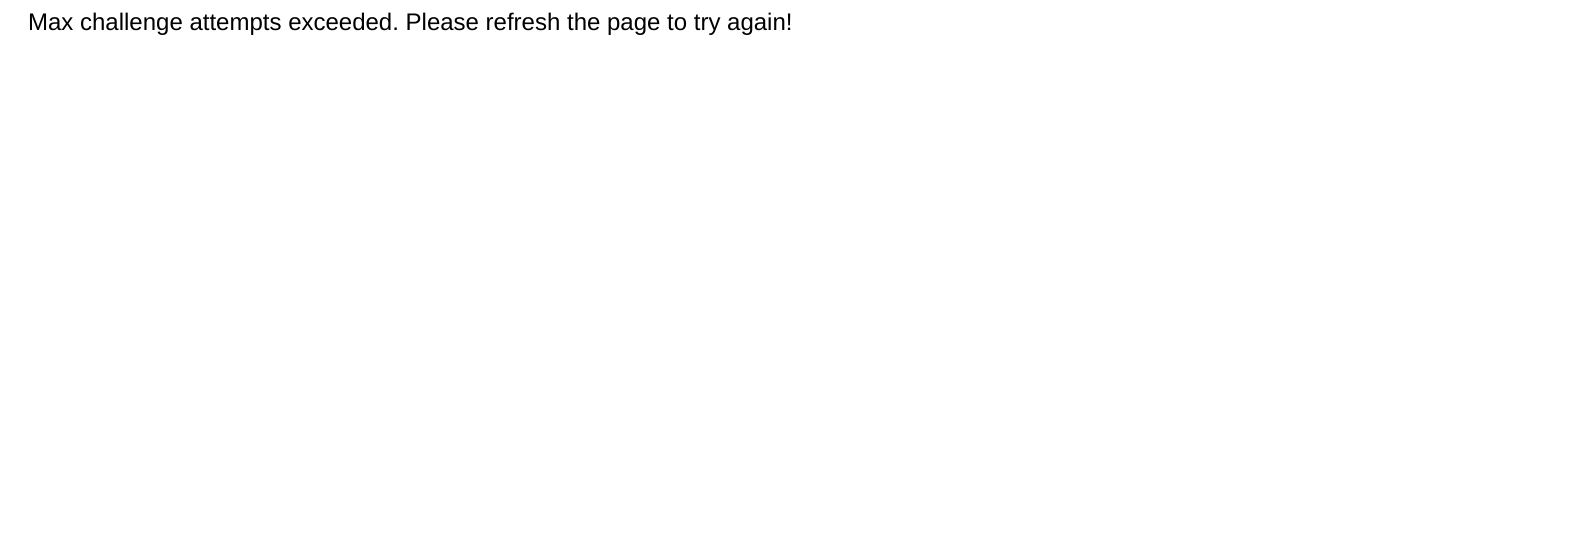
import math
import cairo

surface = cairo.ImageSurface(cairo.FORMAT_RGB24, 1595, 537)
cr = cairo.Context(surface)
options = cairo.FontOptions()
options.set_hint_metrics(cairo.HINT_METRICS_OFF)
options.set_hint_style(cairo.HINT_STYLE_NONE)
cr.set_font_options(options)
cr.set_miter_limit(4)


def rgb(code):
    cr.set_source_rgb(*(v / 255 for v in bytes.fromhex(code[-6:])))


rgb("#ffffff")
cr.paint()
cr.select_font_face("Liberation Sans")
cr.set_font_size(24)
rgb("#000000")
cr.move_to(28, 30)
cr.show_text("Max challenge attempts exceeded. Please refresh the page to try again!")
surface.write_to_png("page.png")
